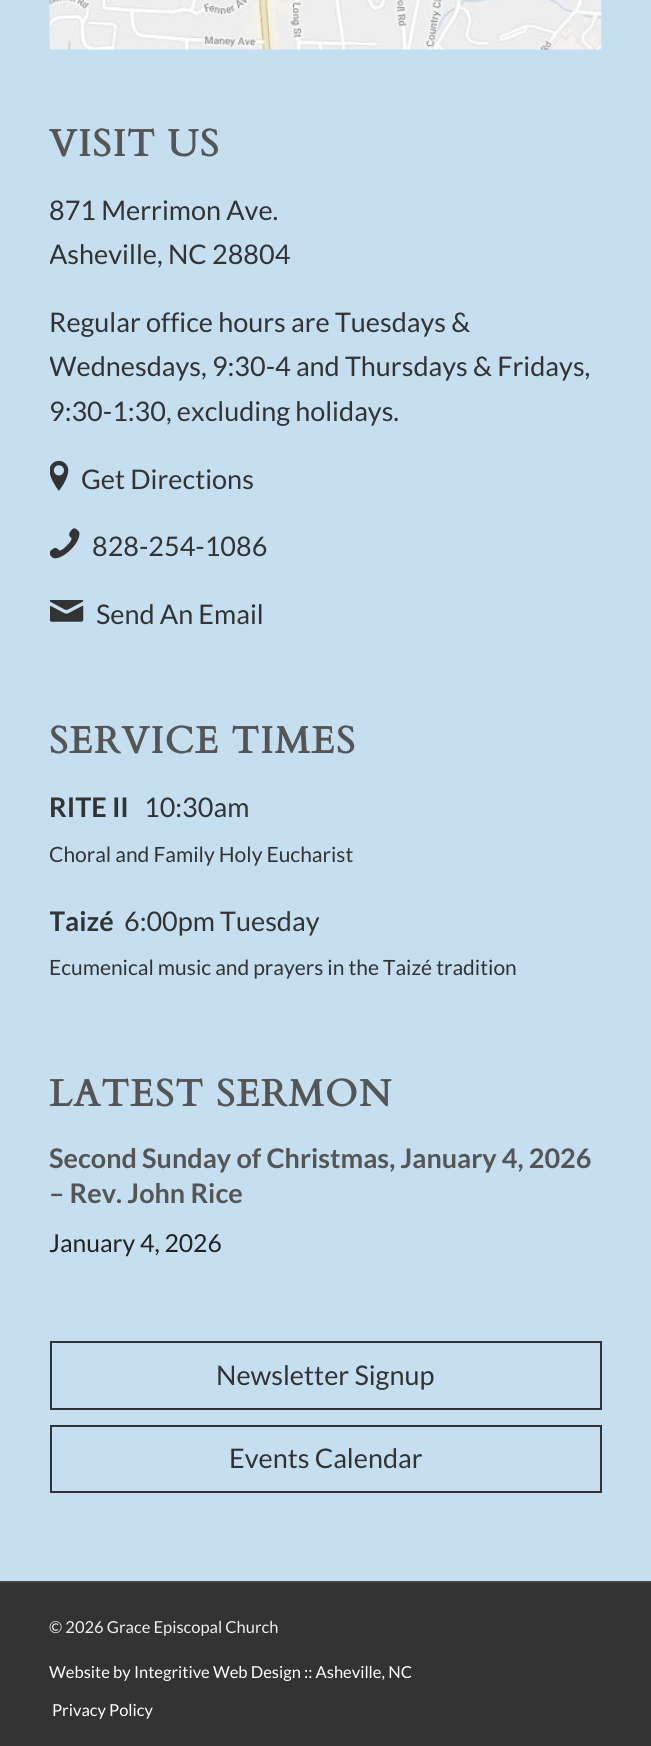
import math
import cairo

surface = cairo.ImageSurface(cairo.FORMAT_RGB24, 651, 1746)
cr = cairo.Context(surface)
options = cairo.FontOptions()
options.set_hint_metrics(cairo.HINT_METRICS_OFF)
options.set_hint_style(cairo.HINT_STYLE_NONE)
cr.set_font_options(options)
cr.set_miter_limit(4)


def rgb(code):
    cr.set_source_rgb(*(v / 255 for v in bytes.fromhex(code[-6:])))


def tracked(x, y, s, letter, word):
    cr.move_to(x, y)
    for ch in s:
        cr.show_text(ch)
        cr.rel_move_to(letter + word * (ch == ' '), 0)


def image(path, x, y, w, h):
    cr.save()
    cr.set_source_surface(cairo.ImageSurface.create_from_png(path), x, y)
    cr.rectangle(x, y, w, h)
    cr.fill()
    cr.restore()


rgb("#c5def0")
cr.paint()
image("img/1.png", 49, 0, 553, 50)
image("img/2.png", 50, 460, 19, 31)
image("img/3.png", 50, 528, 30, 31)
image("img/4.png", 50, 600, 34, 22)
cr.rectangle(51, 1342, 550, 67)
rgb("#333333")
cr.stroke()
cr.rectangle(51, 1426, 550, 66)
cr.stroke()
cr.rectangle(0, 1583, 651, 163)
cr.fill()
rgb("#444444")
cr.rectangle(0, 1581, 651, 2)
cr.fill()
cr.select_font_face("Cardo", cairo.FONT_SLANT_NORMAL, cairo.FONT_WEIGHT_BOLD)
cr.set_font_size(37.5)
rgb("#555555")
tracked(49, 156, "VISIT US", 1.5, 0)
cr.select_font_face("Lato")
cr.set_font_size(27)
rgb("#333333")
cr.move_to(49, 220)
cr.show_text("871 Merrimon Ave.")
cr.save()
cr.rectangle(50, 93, 552, 567)
cr.clip()
cr.move_to(49, 264)
cr.show_text("Asheville, NC 28804")
cr.restore()
cr.move_to(49, 332)
cr.show_text("Regular office hours are Tuesdays &")
cr.save()
cr.rectangle(50, 93, 552, 567)
cr.clip()
cr.move_to(49, 376)
cr.show_text("Wednesdays, 9:30-4 and Thursdays & Fridays,")
cr.restore()
for x, y, s in [
    (49, 421, "9:30-1:30, excluding holidays."),
    (81, 489, "Get Directions"),
    (92, 556, "828-254-1086"),
    (96, 624, "Send An Email"),
]:
    cr.move_to(x, y)
    cr.show_text(s)
cr.select_font_face("Cardo", cairo.FONT_SLANT_NORMAL, cairo.FONT_WEIGHT_BOLD)
cr.set_font_size(37.5)
rgb("#555555")
tracked(49, 753, "SERVICE TIMES", 1.5, 0)
cr.select_font_face("Lato", cairo.FONT_SLANT_NORMAL, cairo.FONT_WEIGHT_BOLD)
cr.set_font_size(27)
rgb("#333333")
cr.move_to(49, 817)
cr.show_text("RITE II")
cr.select_font_face("Lato")
cr.move_to(144, 817)
cr.show_text("10:30am")
cr.save()
cr.rectangle(50, 690, 552, 323)
cr.clip()
cr.set_font_size(21)
cr.move_to(49, 862)
cr.show_text("Choral and Family Holy Eucharist")
cr.select_font_face("Lato", cairo.FONT_SLANT_NORMAL, cairo.FONT_WEIGHT_BOLD)
cr.set_font_size(27)
cr.move_to(49, 931)
cr.show_text("Taizé")
cr.restore()
cr.move_to(124, 931)
cr.show_text("6:00pm Tuesday")
cr.set_font_size(21)
cr.move_to(49, 975)
cr.show_text("Ecumenical music and prayers in the Taizé tradition")
cr.select_font_face("Cardo", cairo.FONT_SLANT_NORMAL, cairo.FONT_WEIGHT_BOLD)
cr.set_font_size(37.5)
rgb("#555555")
tracked(49, 1106, "LATEST SERMON", 1.5, 0)
cr.select_font_face("Lato", cairo.FONT_SLANT_NORMAL, cairo.FONT_WEIGHT_BOLD)
cr.set_font_size(27)
cr.move_to(49, 1168)
cr.show_text("Second Sunday of Christmas, January 4, 2026")
cr.move_to(49, 1203)
cr.show_text("– Rev. John Rice")
cr.select_font_face("Lato")
cr.set_font_size(24.75)
rgb("#222222")
cr.move_to(49, 1252)
cr.show_text("January 4, 2026")
cr.set_font_size(27)
rgb("#333333")
cr.move_to(216, 1385)
cr.show_text("Newsletter Signup")
cr.move_to(229, 1468)
cr.show_text("Events Calendar")
cr.set_font_size(16.5)
rgb("#eeeeee")
cr.move_to(49, 1633)
cr.show_text("© 2026 Grace Episcopal Church")
rgb("#ffffff")
cr.move_to(49, 1678)
cr.show_text("Website by Integritive Web Design :: Asheville, NC")
cr.move_to(52, 1716)
cr.show_text("Privacy Policy")
surface.write_to_png("page.png")
